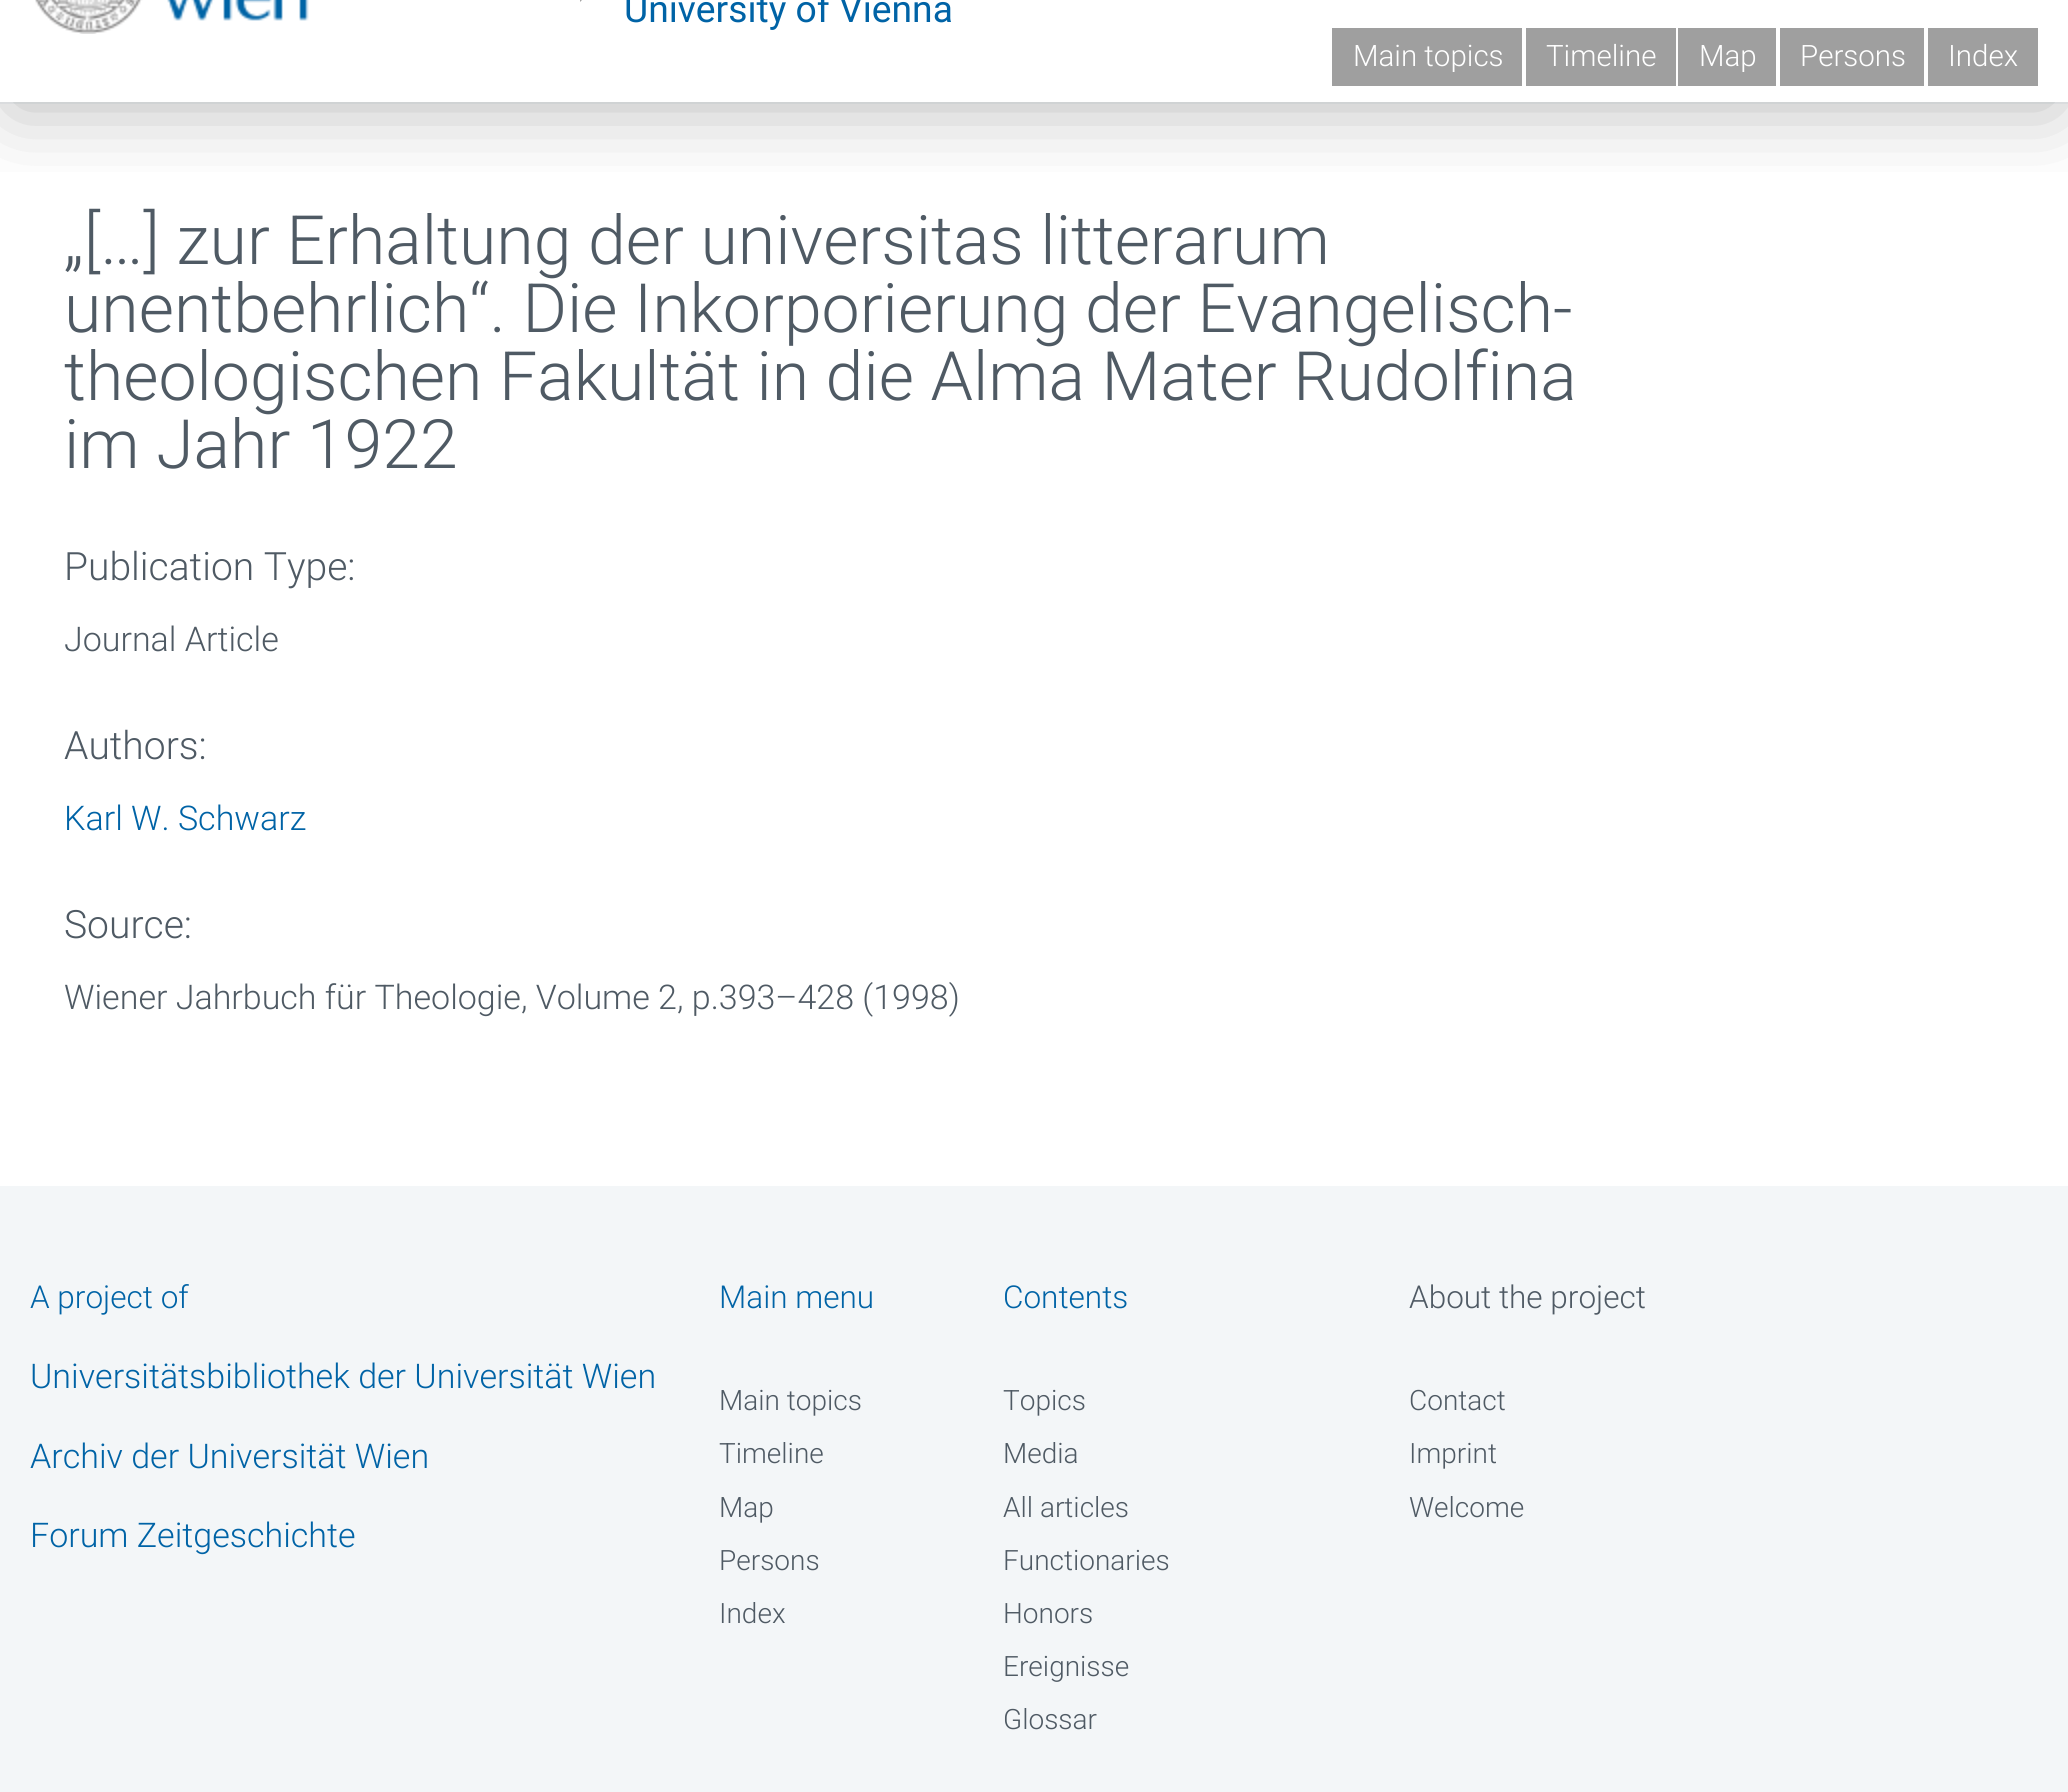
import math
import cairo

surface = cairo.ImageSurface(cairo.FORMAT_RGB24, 2068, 1792)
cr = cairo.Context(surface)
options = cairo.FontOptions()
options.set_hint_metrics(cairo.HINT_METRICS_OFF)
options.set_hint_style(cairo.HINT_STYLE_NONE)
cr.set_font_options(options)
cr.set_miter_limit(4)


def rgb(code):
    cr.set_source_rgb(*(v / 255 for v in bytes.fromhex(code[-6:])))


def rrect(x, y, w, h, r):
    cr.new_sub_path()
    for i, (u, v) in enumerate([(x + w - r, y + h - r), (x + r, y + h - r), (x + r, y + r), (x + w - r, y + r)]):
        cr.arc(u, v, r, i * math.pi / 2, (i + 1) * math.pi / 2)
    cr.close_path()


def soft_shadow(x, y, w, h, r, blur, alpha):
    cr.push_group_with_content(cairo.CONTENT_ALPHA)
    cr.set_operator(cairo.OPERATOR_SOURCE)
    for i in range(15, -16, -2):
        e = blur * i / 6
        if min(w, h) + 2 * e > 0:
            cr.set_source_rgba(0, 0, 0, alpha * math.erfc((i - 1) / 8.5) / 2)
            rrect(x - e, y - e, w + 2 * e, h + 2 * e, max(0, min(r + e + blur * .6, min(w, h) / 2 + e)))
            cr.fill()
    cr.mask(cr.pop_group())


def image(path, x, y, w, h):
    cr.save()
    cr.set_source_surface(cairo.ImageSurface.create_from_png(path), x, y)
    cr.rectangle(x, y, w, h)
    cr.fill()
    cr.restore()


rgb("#ffffff")
cr.paint()
rgb("#f3f6f8")
cr.rectangle(0, 102, 2068, 2)
cr.fill()
cr.save()
cr.rectangle(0, 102, 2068, 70)
cr.clip()
rgb("#464646")
soft_shadow(12, -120, 2044, 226, 0, 40, 0.4)
cr.restore()
image("img/1.png", 35, 0, 274, 34)
rgb("#a4a4a4")
cr.new_path()
cr.move_to(580, 2)
cr.line_to(580, -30)
cr.line_to(596, -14)
cr.close_path()
cr.fill()
for x, y, w, h, color in [
    (1332, 28, 190, 58, "#9f9f9f"),
    (1526, 28, 150, 58, "#9f9f9f"),
    (1678, 28, 98, 58, "#9f9f9f"),
    (1780, 28, 144, 58, "#9f9f9f"),
    (1928, 28, 110, 58, "#9f9f9f"),
    (0, 1186, 2068, 606, "#f3f6f8"),
]:
    rgb(color)
    cr.rectangle(x, y, w, h)
    cr.fill()
cr.select_font_face("Roboto")
cr.set_font_size(37.25)
rgb("#0063a6")
cr.move_to(624, 22)
cr.show_text("University of Vienna")
cr.select_font_face("Roboto Light")
cr.set_font_size(29.5)
rgb("#ffffff")
for x, y, s in [
    (1353, 66, "Main topics"),
    (1546, 66, "Timeline"),
    (1699, 66, "Map"),
    (1800, 66, "Persons"),
    (1948, 66, "Index"),
]:
    cr.move_to(x, y)
    cr.show_text(s)
cr.set_font_size(68)
rgb("#4f5a64")
for x, y, s in [
    (64, 264, "„[…] zur Erhaltung der universitas litterarum"),
    (64, 332, "unentbehrlich“. Die Inkorporierung der Evangelisch-"),
    (64, 400, "theologischen Fakultät in die Alma Mater Rudolfina"),
    (64, 468, "im Jahr 1922"),
]:
    cr.move_to(x, y)
    cr.show_text(s)
cr.set_font_size(39)
cr.move_to(64, 580)
cr.show_text("Publication Type:")
cr.set_font_size(34)
cr.move_to(64, 651)
cr.show_text("Journal Article")
cr.set_font_size(39)
cr.move_to(64, 759)
cr.show_text("Authors:")
cr.set_font_size(34)
rgb("#0063a6")
cr.move_to(64, 830)
cr.show_text("Karl W. Schwarz")
cr.set_font_size(39)
rgb("#4f5a64")
cr.move_to(64, 938)
cr.show_text("Source:")
cr.set_font_size(34)
cr.move_to(64, 1009)
cr.show_text("Wiener Jahrbuch für Theologie, Volume 2, p.393–428 (1998)")
cr.set_font_size(31.5)
rgb("#0063a6")
cr.move_to(30, 1308)
cr.show_text("A project of")
cr.set_font_size(34)
for x, y, s in [
    (30, 1388, "Universitätsbibliothek der Universität Wien"),
    (30, 1468, "Archiv der Universität Wien"),
    (30, 1547, "Forum Zeitgeschichte"),
]:
    cr.move_to(x, y)
    cr.show_text(s)
cr.set_font_size(31.5)
cr.move_to(719, 1308)
cr.show_text("Main menu")
cr.set_font_size(28)
rgb("#4f5a64")
for x, y, s in [
    (719, 1410, "Main topics"),
    (719, 1463, "Timeline"),
    (719, 1517, "Map"),
    (719, 1570, "Persons"),
    (719, 1623, "Index"),
]:
    cr.move_to(x, y)
    cr.show_text(s)
cr.set_font_size(31.5)
rgb("#0063a6")
cr.move_to(1003, 1308)
cr.show_text("Contents")
cr.set_font_size(28)
rgb("#4f5a64")
for x, y, s in [
    (1003, 1410, "Topics"),
    (1003, 1463, "Media"),
    (1003, 1517, "All articles"),
    (1003, 1570, "Functionaries"),
    (1003, 1623, "Honors"),
    (1003, 1676, "Ereignisse"),
    (1003, 1729, "Glossar"),
]:
    cr.move_to(x, y)
    cr.show_text(s)
cr.set_font_size(31.5)
cr.move_to(1409, 1308)
cr.show_text("About the project")
cr.set_font_size(28)
for x, y, s in [
    (1409, 1410, "Contact"),
    (1409, 1463, "Imprint"),
    (1409, 1517, "Welcome"),
]:
    cr.move_to(x, y)
    cr.show_text(s)
surface.write_to_png("page.png")
